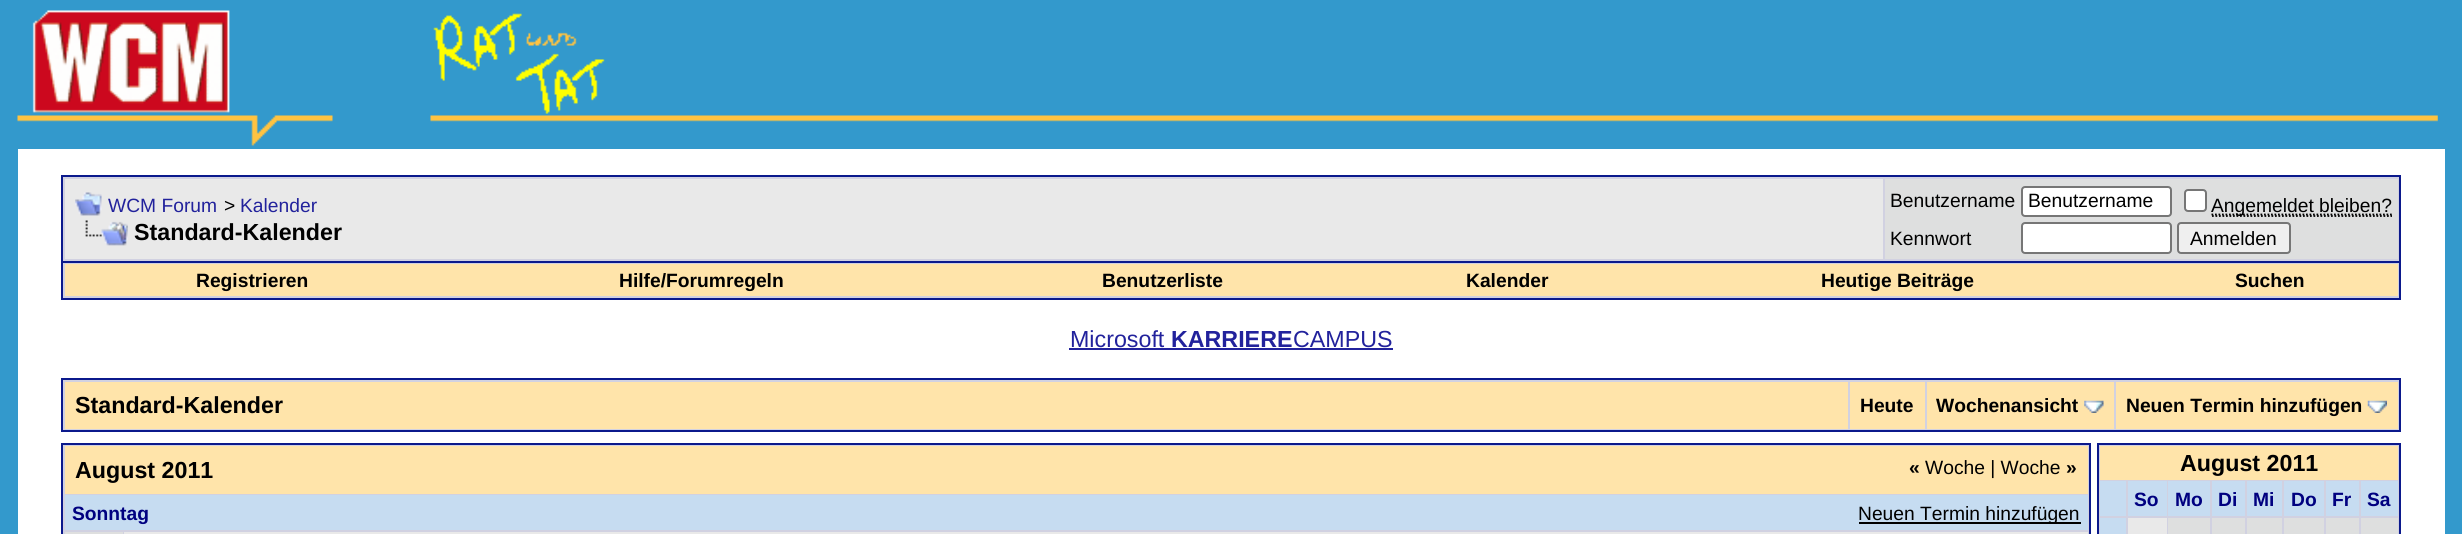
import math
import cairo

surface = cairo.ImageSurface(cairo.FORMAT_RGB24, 2462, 534)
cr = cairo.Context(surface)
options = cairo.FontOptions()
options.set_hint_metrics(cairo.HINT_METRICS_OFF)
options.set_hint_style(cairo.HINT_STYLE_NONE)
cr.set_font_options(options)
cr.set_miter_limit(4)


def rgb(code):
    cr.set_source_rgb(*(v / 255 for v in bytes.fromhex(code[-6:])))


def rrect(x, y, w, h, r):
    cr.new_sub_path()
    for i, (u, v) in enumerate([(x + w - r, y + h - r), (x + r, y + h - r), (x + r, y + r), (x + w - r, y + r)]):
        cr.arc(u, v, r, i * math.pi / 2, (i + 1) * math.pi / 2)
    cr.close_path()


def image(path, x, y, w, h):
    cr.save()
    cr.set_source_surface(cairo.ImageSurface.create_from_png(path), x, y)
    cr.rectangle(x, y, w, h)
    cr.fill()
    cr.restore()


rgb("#3399cc")
cr.paint()
image("img/1.png", 32, 10, 198, 103)
image("img/2.png", 433, 13, 172, 101)
image("img/3.png", 17, 115, 316, 31)
image("img/4.png", 430, 113, 2008, 9)
rgb("#ffffff")
cr.rectangle(18, 149, 2427, 385)
cr.fill()
rgb("#d1d1e1")
cr.rectangle(62, 176, 2338, 86)
cr.fill_preserve()
rgb("#0b198c")
cr.stroke()
rgb("#e9e9e9")
cr.rectangle(65, 179, 1818, 80)
cr.fill()
image("img/5.png", 75, 192, 27, 24)
image("img/6.png", 85, 220, 43, 26)
rgb("#dedfdf")
cr.rectangle(1885, 179, 513, 80)
cr.fill()
rgb("#ffffff")
rrect(2022, 187, 149, 29, 3)
cr.fill_preserve()
rgb("#767676")
cr.stroke()
rgb("#ffffff")
rrect(2185, 190, 21, 21, 3)
cr.fill_preserve()
rgb("#767676")
cr.stroke()
cr.new_path()
cr.move_to(2212, 216)
cr.line_to(2392, 216)
rgb("#000000")
cr.set_line_width(1.8)
cr.set_dash([1.75, 1.75])
cr.stroke()
cr.new_path()
cr.move_to(2211.5, 214.5)
cr.line_to(2392, 214.5)
cr.stroke()
rgb("#ffffff")
rrect(2022, 223, 149, 30, 3)
cr.fill_preserve()
rgb("#767676")
cr.set_line_width(2)
cr.set_dash([])
cr.stroke()
rgb("#efefef")
rrect(2178, 223, 112, 30, 3)
cr.fill_preserve()
rgb("#767676")
cr.stroke()
for x, y, w, h, color in [
    (63, 263, 2336, 35, "#d1d1e1"),
    (2399, 263, 2, 36, "#0b198c"),
    (61, 298, 2340, 2, "#0b198c"),
    (61, 263, 2, 36, "#0b198c"),
    (65, 264, 2333, 32, "#ffe4aa"),
    (1069, 348, 324, 2, "#22229c"),
]:
    rgb(color)
    cr.rectangle(x, y, w, h)
    cr.fill()
rgb("#d1d1e1")
cr.rectangle(62, 379, 2338, 52)
cr.fill_preserve()
rgb("#0b198c")
cr.stroke()
for x, y, w, h, color in [
    (65, 382, 1783, 47, "#ffe4aa"),
    (1850, 382, 75, 47, "#ffe4aa"),
    (1927, 382, 187, 47, "#ffe4aa"),
]:
    rgb(color)
    cr.rectangle(x, y, w, h)
    cr.fill()
image("img/7.png", 2084, 400, 20, 13)
cr.rectangle(2116, 382, 282, 47)
cr.fill()
image("img/8.png", 2367, 400, 20, 13)
rgb("#d1d1e1")
cr.rectangle(62, 444, 2028, 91)
cr.fill_preserve()
rgb("#0b198c")
cr.stroke()
for x, y, w, h, color in [
    (65, 446, 2023, 48, "#ffe4aa"),
    (65, 495, 2023, 35, "#c6dcf1"),
    (1859, 522, 222, 2, "#000000"),
    (65, 532, 58, 2, "#dedfdf"),
    (124, 532, 1964, 2, "#e9e9e9"),
]:
    rgb(color)
    cr.rectangle(x, y, w, h)
    cr.fill()
rgb("#d1d1e1")
cr.rectangle(2098, 444, 302, 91)
cr.fill_preserve()
rgb("#0b198c")
cr.stroke()
for x, y, w, h, color in [
    (2100, 446, 298, 34, "#ffe4aa"),
    (2100, 481, 26, 35, "#c6dcf1"),
    (2128, 481, 39, 35, "#c6dcf1"),
    (2168, 481, 42, 35, "#c6dcf1"),
    (2212, 481, 33, 35, "#c6dcf1"),
    (2247, 481, 35, 35, "#c6dcf1"),
    (2284, 481, 40, 35, "#c6dcf1"),
    (2326, 481, 33, 35, "#c6dcf1"),
    (2361, 481, 37, 35, "#c6dcf1"),
    (2100, 518, 26, 16, "#c6dcf1"),
    (2128, 518, 39, 16, "#e9e9e9"),
    (2168, 518, 42, 16, "#dedfdf"),
    (2212, 518, 33, 16, "#dedfdf"),
    (2247, 518, 35, 16, "#dedfdf"),
    (2284, 518, 40, 16, "#dedfdf"),
    (2326, 518, 33, 16, "#dedfdf"),
    (2361, 518, 37, 16, "#dedfdf"),
]:
    rgb(color)
    cr.rectangle(x, y, w, h)
    cr.fill()
cr.select_font_face("Liberation Sans")
cr.set_font_size(19.25)
rgb("#22229c")
cr.move_to(108, 212)
cr.show_text("WCM Forum")
rgb("#000000")
cr.move_to(224, 212)
cr.show_text(">")
rgb("#22229c")
cr.move_to(240, 212)
cr.show_text("Kalender")
cr.select_font_face("Liberation Sans", cairo.FONT_SLANT_NORMAL, cairo.FONT_WEIGHT_BOLD)
cr.set_font_size(23.25)
rgb("#000000")
cr.move_to(134, 240)
cr.show_text("Standard-Kalender")
cr.select_font_face("Liberation Sans")
cr.set_font_size(19.25)
for x, y, s in [
    (1890, 207, "Benutzername"),
    (2028, 207, "Benutzername"),
    (2211, 212, "Angemeldet bleiben?"),
    (1890, 245, "Kennwort"),
    (2190, 245, "Anmelden"),
]:
    cr.move_to(x, y)
    cr.show_text(s)
cr.select_font_face("Liberation Sans", cairo.FONT_SLANT_NORMAL, cairo.FONT_WEIGHT_BOLD)
for x, y, s in [
    (196, 287, "Registrieren"),
    (619, 287, "Hilfe/Forumregeln"),
    (1102, 287, "Benutzerliste"),
    (1466, 287, "Kalender"),
    (1821, 287, "Heutige Beiträge"),
    (2235, 287, "Suchen"),
]:
    cr.move_to(x, y)
    cr.show_text(s)
cr.select_font_face("Liberation Sans")
cr.set_font_size(23.25)
rgb("#22229c")
cr.move_to(1070, 347)
cr.show_text("Microsoft")
cr.select_font_face("Liberation Sans", cairo.FONT_SLANT_NORMAL, cairo.FONT_WEIGHT_BOLD)
cr.move_to(1171, 347)
cr.show_text("KARRIERE")
cr.select_font_face("Liberation Sans")
cr.move_to(1293, 347)
cr.show_text("CAMPUS")
cr.select_font_face("Liberation Sans", cairo.FONT_SLANT_NORMAL, cairo.FONT_WEIGHT_BOLD)
rgb("#000000")
cr.move_to(75, 413)
cr.show_text("Standard-Kalender")
cr.set_font_size(19.25)
for x, y, s in [
    (1860, 412, "Heute"),
    (1936, 412, "Wochenansicht"),
    (2126, 412, "Neuen Termin hinzufügen"),
]:
    cr.move_to(x, y)
    cr.show_text(s)
cr.set_font_size(23.25)
cr.move_to(75, 478)
cr.show_text("August 2011")
cr.set_font_size(19.25)
cr.move_to(1909, 474)
cr.show_text("«")
cr.select_font_face("Liberation Sans")
cr.move_to(1925, 474)
cr.show_text("Woche | Woche")
cr.select_font_face("Liberation Sans", cairo.FONT_SLANT_NORMAL, cairo.FONT_WEIGHT_BOLD)
cr.move_to(2066, 474)
cr.show_text("»")
rgb("#000080")
cr.move_to(72, 520)
cr.show_text("Sonntag")
cr.select_font_face("Liberation Sans")
rgb("#000000")
cr.move_to(1858, 520)
cr.show_text("Neuen Termin hinzufügen")
cr.select_font_face("Liberation Sans", cairo.FONT_SLANT_NORMAL, cairo.FONT_WEIGHT_BOLD)
cr.set_font_size(23.25)
cr.move_to(2180, 471)
cr.show_text("August 2011")
cr.set_font_size(19.25)
rgb("#000080")
for x, y, s in [
    (2134, 506, "So"),
    (2175, 506, "Mo"),
    (2218, 506, "Di"),
    (2253, 506, "Mi"),
    (2291, 506, "Do"),
    (2332, 506, "Fr"),
    (2367, 506, "Sa"),
]:
    cr.move_to(x, y)
    cr.show_text(s)
surface.write_to_png("page.png")
